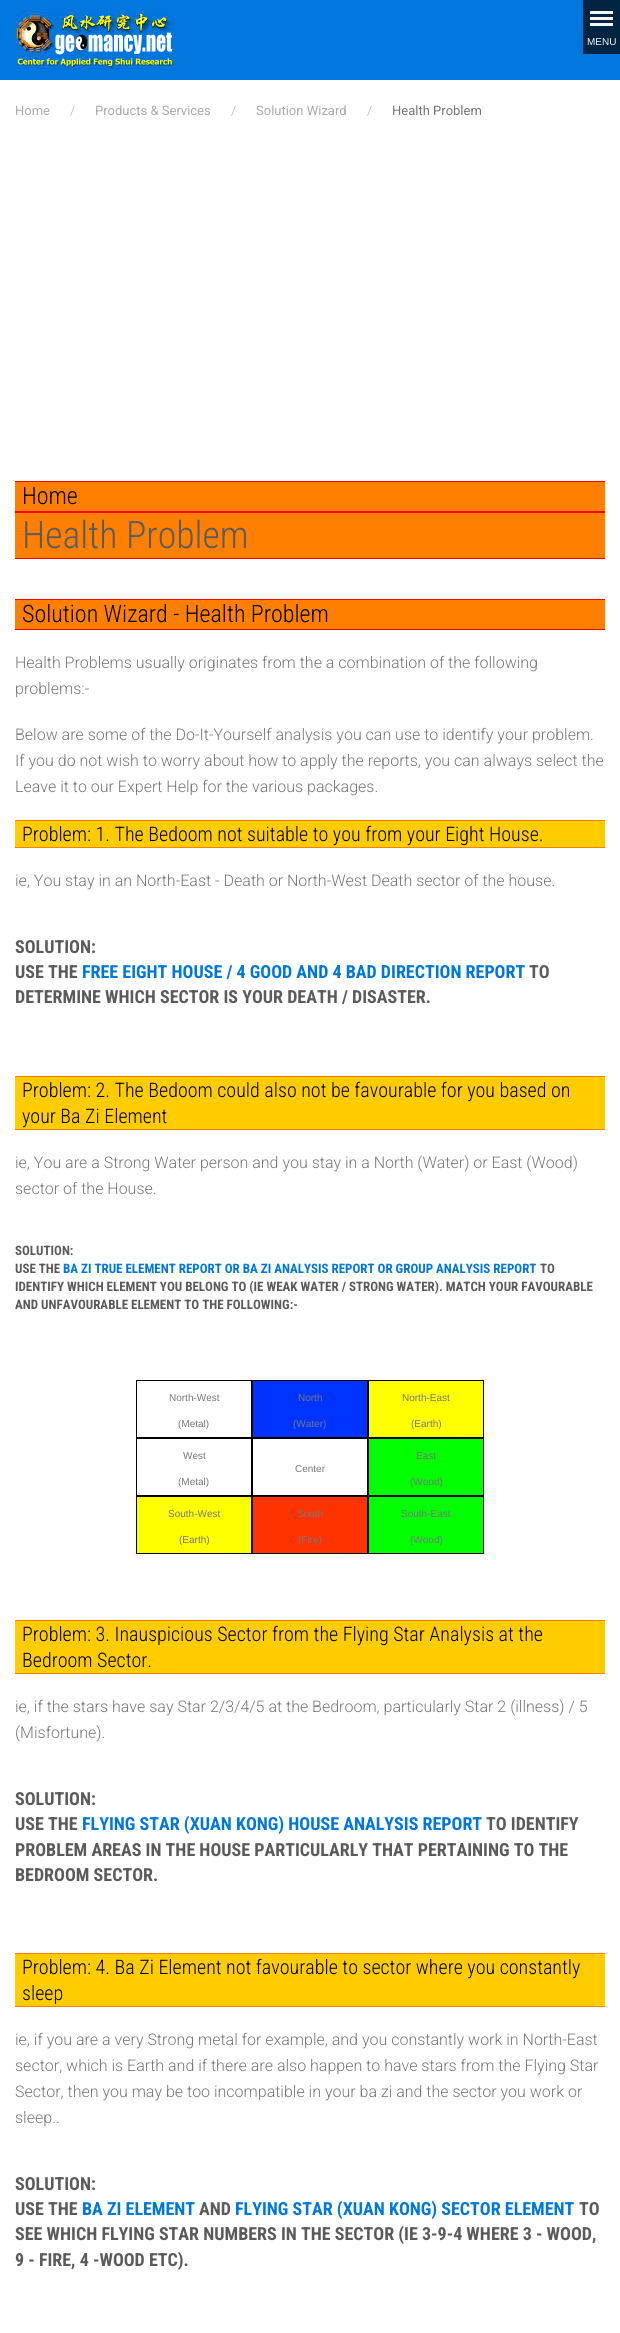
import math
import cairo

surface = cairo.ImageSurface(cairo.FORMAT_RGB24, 620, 2333)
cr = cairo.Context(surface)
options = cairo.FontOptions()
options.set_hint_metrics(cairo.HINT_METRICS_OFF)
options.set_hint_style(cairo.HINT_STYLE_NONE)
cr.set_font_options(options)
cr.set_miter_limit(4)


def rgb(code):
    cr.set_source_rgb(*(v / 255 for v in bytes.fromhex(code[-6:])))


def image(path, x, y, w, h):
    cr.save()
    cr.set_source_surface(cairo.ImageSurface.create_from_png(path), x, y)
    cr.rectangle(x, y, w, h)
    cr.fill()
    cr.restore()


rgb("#ffffff")
cr.paint()
for x, y, w, h, color in [
    (0, 0, 620, 80, "#0077dd"),
    (583, 0, 37, 54, "#002442"),
    (590, 11, 23, 3, "#f6f6f6"),
    (590, 17, 23, 3, "#f6f6f6"),
    (590, 23, 23, 3, "#f6f6f6"),
]:
    rgb(color)
    cr.rectangle(x, y, w, h)
    cr.fill()
image("img/1.png", 15, 13, 159, 57)
for x, y, w, h, color in [
    (15, 482, 590, 29, "#ff8000"),
    (15, 481, 590, 1, "#ff0000"),
    (15, 511, 590, 2, "#ff0000"),
    (15, 513, 590, 45, "#ff8000"),
    (15, 558, 590, 1, "#ff0000"),
    (15, 600, 590, 29, "#ff8000"),
    (15, 599, 590, 1, "#ff0000"),
    (15, 629, 590, 1, "#ff0000"),
    (15, 821, 590, 26, "#ffcc00"),
    (15, 820, 590, 1, "#ff8000"),
    (15, 847, 590, 1, "#ff8000"),
    (15, 1077, 590, 52, "#ffcc00"),
    (15, 1076, 590, 1, "#ff8000"),
    (15, 1129, 590, 1, "#ff8000"),
]:
    rgb(color)
    cr.rectangle(x, y, w, h)
    cr.fill()
cr.rectangle(136.5, 1380.5, 115, 57)
rgb("#000000")
cr.set_line_width(1)
cr.stroke()
rgb("#0033ff")
cr.rectangle(252.5, 1380.5, 115, 57)
cr.fill_preserve()
rgb("#000000")
cr.stroke()
rgb("#ffff00")
cr.rectangle(368.5, 1380.5, 115, 57)
cr.fill_preserve()
rgb("#000000")
cr.stroke()
cr.rectangle(136.5, 1438.5, 115, 57)
cr.stroke()
cr.rectangle(252.5, 1438.5, 115, 57)
cr.stroke()
rgb("#00ff00")
cr.rectangle(368.5, 1438.5, 115, 57)
cr.fill_preserve()
rgb("#000000")
cr.stroke()
rgb("#ffff00")
cr.rectangle(136.5, 1496.5, 115, 57)
cr.fill_preserve()
rgb("#000000")
cr.stroke()
rgb("#ff3300")
cr.rectangle(252.5, 1496.5, 115, 57)
cr.fill_preserve()
rgb("#000000")
cr.stroke()
rgb("#00ff00")
cr.rectangle(368.5, 1496.5, 115, 57)
cr.fill_preserve()
rgb("#000000")
cr.stroke()
for x, y, w, h, color in [
    (15, 1621, 590, 52, "#ffcc00"),
    (15, 1620, 590, 1, "#ff8000"),
    (15, 1673, 590, 1, "#ff8000"),
    (15, 1954, 590, 52, "#ffcc00"),
    (15, 1953, 590, 1, "#ff8000"),
    (15, 2006, 590, 1, "#ff8000"),
]:
    rgb(color)
    cr.rectangle(x, y, w, h)
    cr.fill()
cr.select_font_face("Liberation Sans")
cr.set_font_size(10)
rgb("#f6f6f6")
cr.move_to(587, 45)
cr.show_text("MENU")
cr.select_font_face("Roboto")
cr.set_font_size(13)
rgb("#aaaaaa")
cr.move_to(15, 115)
cr.show_text("Home")
cr.select_font_face("Roboto Light")
cr.move_to(70, 115)
cr.show_text("/")
cr.select_font_face("Roboto")
cr.move_to(95, 115)
cr.show_text("Products & Services")
cr.select_font_face("Roboto Light")
cr.move_to(231, 115)
cr.show_text("/")
cr.select_font_face("Roboto")
cr.move_to(256, 115)
cr.show_text("Solution Wizard")
cr.select_font_face("Roboto Light")
cr.move_to(367, 115)
cr.show_text("/")
cr.select_font_face("Roboto")
rgb("#767779")
cr.move_to(392, 115)
cr.show_text("Health Problem")
cr.select_font_face("Roboto Condensed Light")
cr.set_font_size(24)
rgb("#000000")
cr.move_to(22, 504)
cr.show_text("Home")
cr.set_font_size(37.75)
rgb("#5b5b5b")
cr.move_to(22, 548)
cr.show_text("Health Problem")
cr.set_font_size(24)
rgb("#000000")
cr.move_to(22, 622)
cr.show_text("Solution Wizard - Health Problem")
cr.select_font_face("Roboto Light")
cr.set_font_size(16)
rgb("#767779")
for x, y, s in [
    (15, 668, "Health Problems usually originates from the a combination of the following"),
    (15, 694, "problems:-"),
    (15, 740, "Below are some of the Do-It-Yourself analysis you can use to identify your problem."),
    (15, 766, "If you do not wish to worry about how to apply the reports, you can always select the"),
    (15, 792, "Leave it to our Expert Help for the various packages."),
]:
    cr.move_to(x, y)
    cr.show_text(s)
cr.select_font_face("Roboto Condensed Light")
cr.set_font_size(20)
rgb("#000000")
cr.move_to(22, 841)
cr.show_text("Problem: 1. The Bedoom not suitable to you from your Eight House.")
cr.select_font_face("Roboto Light")
cr.set_font_size(16)
rgb("#767779")
cr.move_to(15, 886)
cr.show_text("ie, You stay in an North-East - Death or North-West Death sector of the house.")
cr.select_font_face("Roboto Condensed", cairo.FONT_SLANT_NORMAL, cairo.FONT_WEIGHT_BOLD)
cr.set_font_size(18)
rgb("#5b5b5b")
cr.move_to(15, 953)
cr.show_text("SOLUTION:")
cr.move_to(15, 978)
cr.show_text("USE THE")
rgb("#0077dd")
cr.move_to(82, 978)
cr.show_text("FREE EIGHT HOUSE / 4 GOOD AND 4 BAD DIRECTION REPORT")
rgb("#5b5b5b")
cr.move_to(529, 978)
cr.show_text("TO")
cr.move_to(15, 1003)
cr.show_text("DETERMINE WHICH SECTOR IS YOUR DEATH / DISASTER.")
cr.select_font_face("Roboto Condensed Light")
cr.set_font_size(20)
rgb("#000000")
cr.move_to(22, 1097)
cr.show_text("Problem: 2. The Bedoom could also not be favourable for you based on")
cr.move_to(22, 1123)
cr.show_text("your Ba Zi Element")
cr.select_font_face("Roboto Light")
cr.set_font_size(16)
rgb("#767779")
cr.move_to(15, 1168)
cr.show_text("ie, You are a Strong Water person and you stay in a North (Water) or East (Wood)")
cr.move_to(15, 1194)
cr.show_text("sector of the House.")
cr.select_font_face("Roboto Condensed", cairo.FONT_SLANT_NORMAL, cairo.FONT_WEIGHT_BOLD)
cr.set_font_size(13)
rgb("#5b5b5b")
cr.move_to(15, 1255)
cr.show_text("SOLUTION:")
cr.move_to(15, 1273)
cr.show_text("USE THE")
rgb("#0077dd")
cr.move_to(63, 1273)
cr.show_text("BA ZI TRUE ELEMENT REPORT OR BA ZI ANALYSIS REPORT OR GROUP ANALYSIS REPORT")
rgb("#5b5b5b")
for x, y, s in [
    (540, 1273, "TO"),
    (15, 1291, "IDENTIFY WHICH ELEMENT YOU BELONG TO (IE WEAK WATER / STRONG WATER). MATCH YOUR FAVOURABLE"),
    (15, 1309, "AND UNFAVOURABLE ELEMENT TO THE FOLLOWING:-"),
]:
    cr.move_to(x, y)
    cr.show_text(s)
cr.select_font_face("Liberation Sans")
cr.set_font_size(10)
rgb("#767779")
for x, y, s in [
    (169, 1401, "North-West"),
    (178, 1427, "(Metal)"),
    (298, 1401, "North"),
    (293, 1427, "(Water)"),
    (402, 1401, "North-East"),
    (411, 1427, "(Earth)"),
    (183, 1459, "West"),
    (178, 1485, "(Metal)"),
    (295, 1472, "Center"),
    (416, 1459, "East"),
    (410, 1485, "(Wood)"),
    (168, 1517, "South-West"),
    (179, 1543, "(Earth)"),
    (297, 1517, "South"),
    (298, 1543, "(Fire)"),
    (401, 1517, "South-East"),
    (410, 1543, "(Wood)"),
]:
    cr.move_to(x, y)
    cr.show_text(s)
cr.select_font_face("Roboto Condensed Light")
cr.set_font_size(20)
rgb("#000000")
cr.move_to(22, 1641)
cr.show_text("Problem: 3. Inauspicious Sector from the Flying Star Analysis at the")
cr.move_to(22, 1667)
cr.show_text("Bedroom Sector.")
cr.select_font_face("Roboto Light")
cr.set_font_size(16)
rgb("#767779")
cr.move_to(15, 1712)
cr.show_text("ie, if the stars have say Star 2/3/4/5 at the Bedroom, particularly Star 2 (illness) / 5")
cr.move_to(15, 1738)
cr.show_text("(Misfortune).")
cr.select_font_face("Roboto Condensed", cairo.FONT_SLANT_NORMAL, cairo.FONT_WEIGHT_BOLD)
cr.set_font_size(18)
rgb("#5b5b5b")
cr.move_to(15, 1805)
cr.show_text("SOLUTION:")
cr.move_to(15, 1830)
cr.show_text("USE THE")
rgb("#0077dd")
cr.move_to(82, 1830)
cr.show_text("FLYING STAR (XUAN KONG) HOUSE ANALYSIS REPORT")
rgb("#5b5b5b")
for x, y, s in [
    (486, 1830, "TO IDENTIFY"),
    (15, 1856, "PROBLEM AREAS IN THE HOUSE PARTICULARLY THAT PERTAINING TO THE"),
    (15, 1881, "BEDROOM SECTOR."),
]:
    cr.move_to(x, y)
    cr.show_text(s)
cr.select_font_face("Roboto Condensed Light")
cr.set_font_size(20)
rgb("#000000")
cr.move_to(22, 1974)
cr.show_text("Problem: 4. Ba Zi Element not favourable to sector where you constantly")
cr.move_to(22, 2000)
cr.show_text("sleep")
cr.select_font_face("Roboto Light")
cr.set_font_size(16)
rgb("#767779")
for x, y, s in [
    (15, 2045, "ie, if you are a very Strong metal for example, and you constantly work in North-East"),
    (15, 2071, "sector, which is Earth and if there are also happen to have stars from the Flying Star"),
    (15, 2097, "Sector, then you may be too incompatible in your ba zi and the sector you work or"),
    (15, 2123, "sleep.."),
]:
    cr.move_to(x, y)
    cr.show_text(s)
cr.select_font_face("Roboto Condensed", cairo.FONT_SLANT_NORMAL, cairo.FONT_WEIGHT_BOLD)
cr.set_font_size(18)
rgb("#5b5b5b")
cr.move_to(15, 2190)
cr.show_text("SOLUTION:")
cr.move_to(15, 2215)
cr.show_text("USE THE")
rgb("#0077dd")
cr.move_to(82, 2215)
cr.show_text("BA ZI ELEMENT")
rgb("#5b5b5b")
cr.move_to(199, 2215)
cr.show_text("AND")
rgb("#0077dd")
cr.move_to(235, 2215)
cr.show_text("FLYING STAR (XUAN KONG) SECTOR ELEMENT")
rgb("#5b5b5b")
for x, y, s in [
    (579, 2215, "TO"),
    (15, 2240, "SEE WHICH FLYING STAR NUMBERS IN THE SECTOR (IE 3-9-4 WHERE 3 - WOOD,"),
    (15, 2266, "9 - FIRE, 4 -WOOD ETC)."),
]:
    cr.move_to(x, y)
    cr.show_text(s)
surface.write_to_png("page.png")
